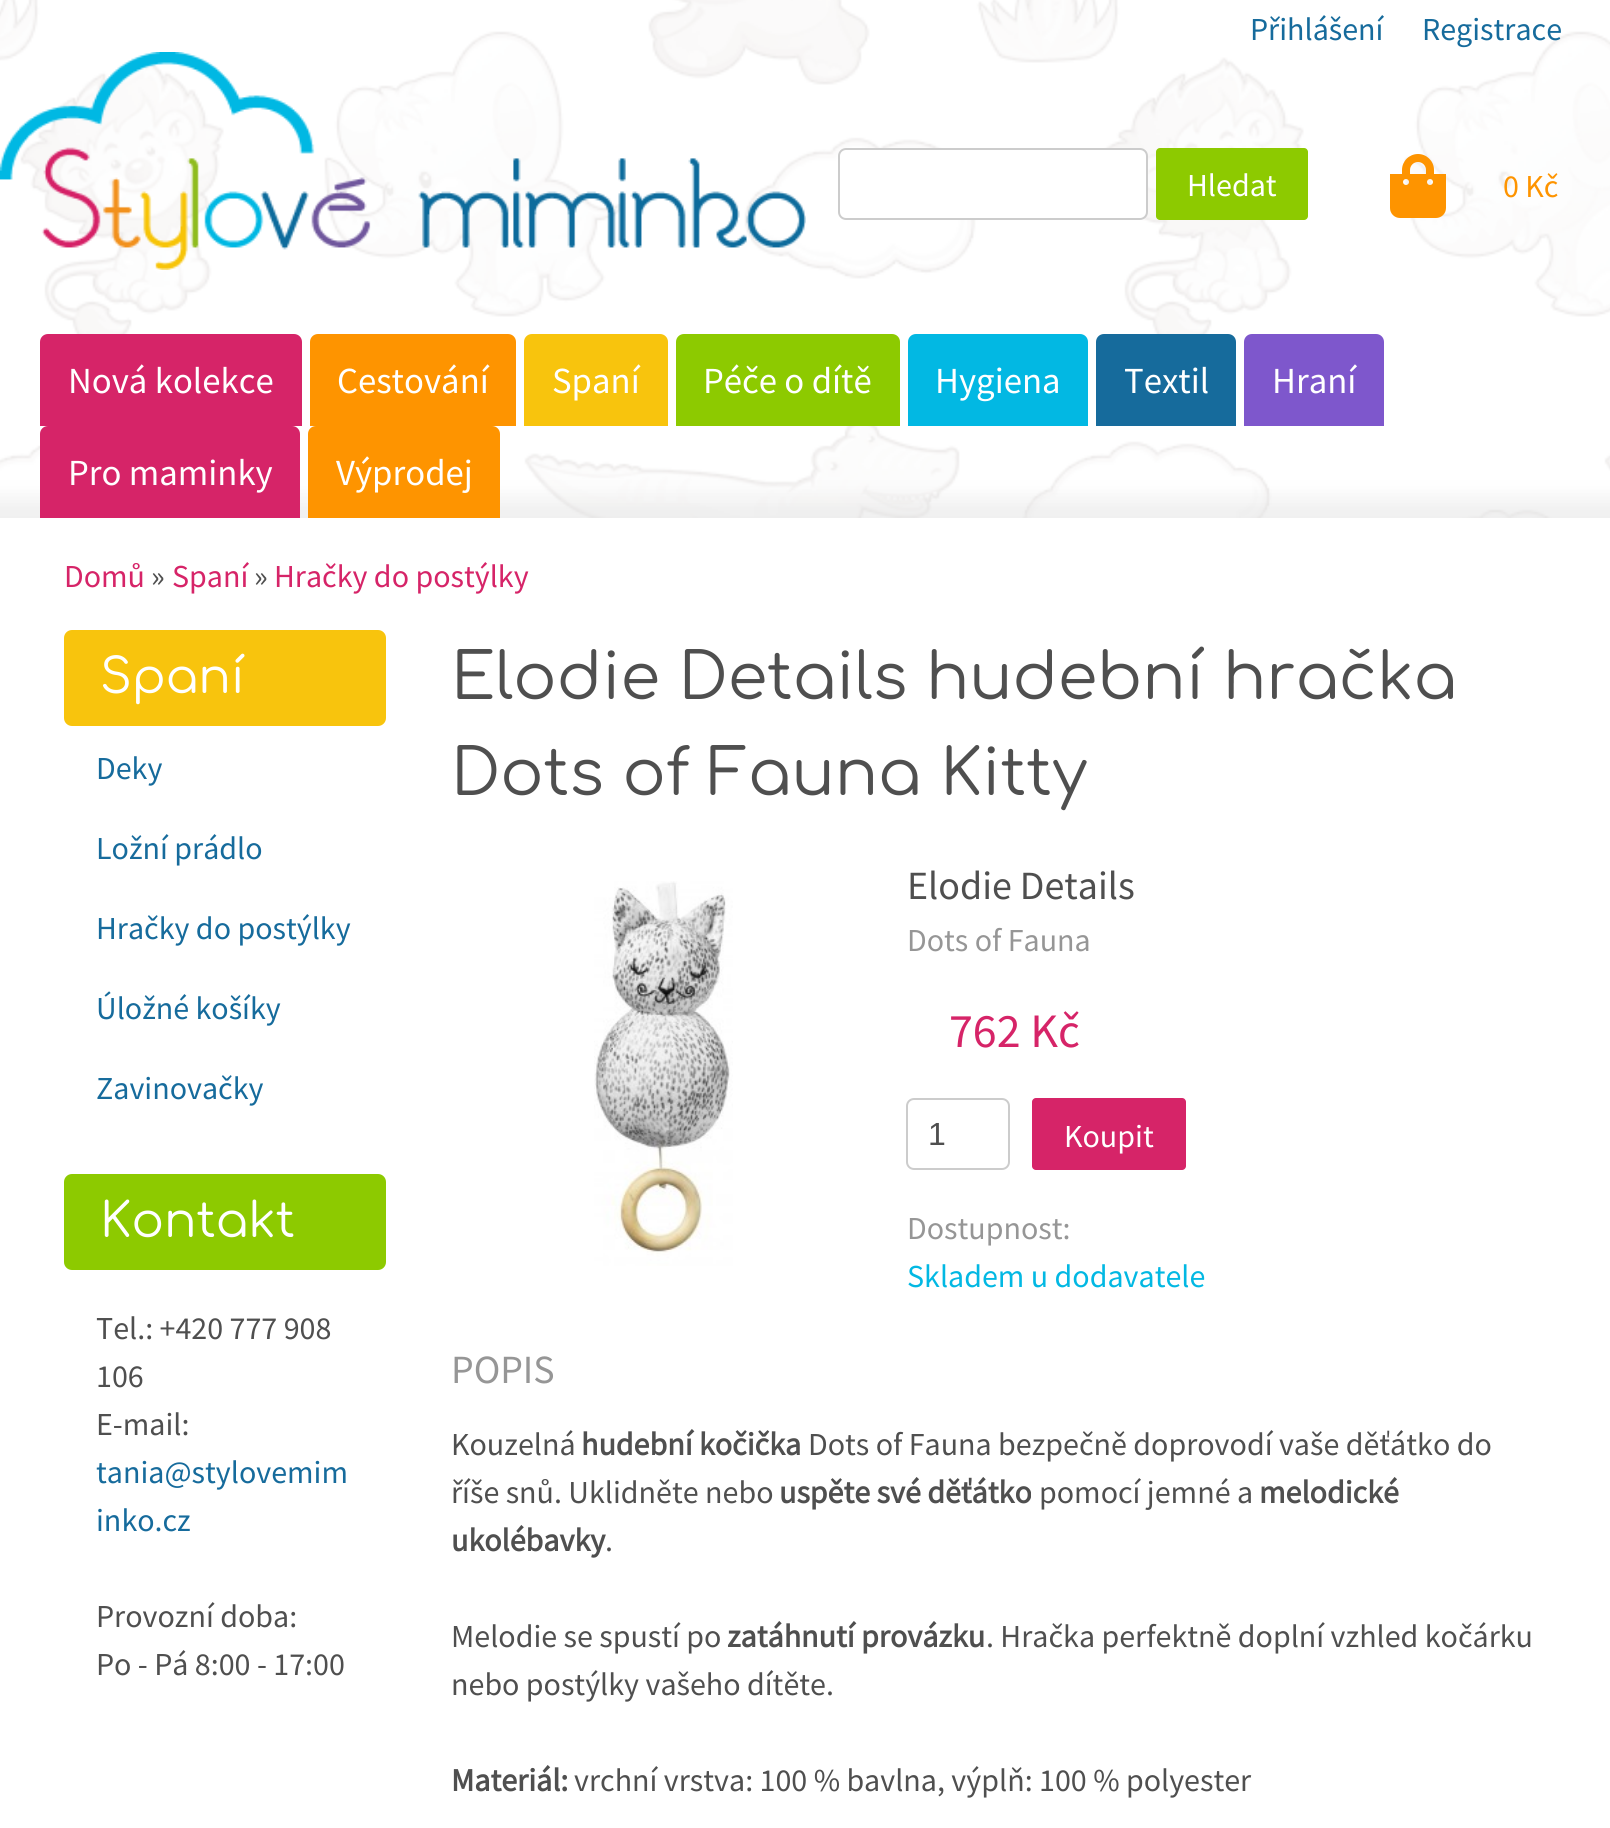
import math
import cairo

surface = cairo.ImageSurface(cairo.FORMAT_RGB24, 1610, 1828)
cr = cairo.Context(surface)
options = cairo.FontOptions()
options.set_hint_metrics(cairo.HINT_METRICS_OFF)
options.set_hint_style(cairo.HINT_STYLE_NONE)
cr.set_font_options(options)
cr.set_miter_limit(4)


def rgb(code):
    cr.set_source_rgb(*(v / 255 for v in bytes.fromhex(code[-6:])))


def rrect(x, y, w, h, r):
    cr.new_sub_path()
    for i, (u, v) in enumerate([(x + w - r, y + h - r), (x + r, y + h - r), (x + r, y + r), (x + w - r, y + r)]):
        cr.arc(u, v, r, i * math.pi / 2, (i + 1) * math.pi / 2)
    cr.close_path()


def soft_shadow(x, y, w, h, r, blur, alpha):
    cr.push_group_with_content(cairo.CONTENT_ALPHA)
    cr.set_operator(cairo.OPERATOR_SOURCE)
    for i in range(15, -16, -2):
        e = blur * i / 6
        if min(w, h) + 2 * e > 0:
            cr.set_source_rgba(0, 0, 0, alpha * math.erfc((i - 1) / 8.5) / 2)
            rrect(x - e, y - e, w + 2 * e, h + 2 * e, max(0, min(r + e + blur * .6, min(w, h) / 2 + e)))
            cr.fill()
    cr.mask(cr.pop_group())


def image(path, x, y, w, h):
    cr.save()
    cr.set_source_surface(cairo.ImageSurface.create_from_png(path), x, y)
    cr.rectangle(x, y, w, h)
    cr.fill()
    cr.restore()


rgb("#ffffff")
cr.paint()
image("img/1.png", 0, 0, 1610, 518)
image("img/2.png", 0, 52, 806, 218)
rgb("#ffffff")
rrect(839, 149, 308, 70, 7)
cr.fill_preserve()
rgb("#cccccc")
cr.stroke()
rgb("#8dca00")
rrect(1156, 148, 152, 72, 4)
cr.fill()
image("img/3.png", 1390, 154, 56, 64)
rgb("#d62468")
cr.new_path()
cr.move_to(48, 334)
cr.line_to(294, 334)
cr.curve_to(298.5, 334, 302, 337.5, 302, 342)
cr.line_to(302, 426)
cr.line_to(40, 426)
cr.line_to(40, 342)
cr.curve_to(40, 337.5, 43.5, 334, 48, 334)
cr.close_path()
cr.fill()
rgb("#fe9400")
cr.new_path()
cr.move_to(318, 334)
cr.line_to(508, 334)
cr.curve_to(512.5, 334, 516, 337.5, 516, 342)
cr.line_to(516, 426)
cr.line_to(310, 426)
cr.line_to(310, 342)
cr.curve_to(310, 337.5, 313.5, 334, 318, 334)
cr.close_path()
cr.fill()
rgb("#f8c40d")
cr.new_path()
cr.move_to(532, 334)
cr.line_to(660, 334)
cr.curve_to(664.5, 334, 668, 337.5, 668, 342)
cr.line_to(668, 426)
cr.line_to(524, 426)
cr.line_to(524, 342)
cr.curve_to(524, 337.5, 527.5, 334, 532, 334)
cr.close_path()
cr.fill()
rgb("#8dca00")
cr.new_path()
cr.move_to(684, 334)
cr.line_to(892, 334)
cr.curve_to(896.5, 334, 900, 337.5, 900, 342)
cr.line_to(900, 426)
cr.line_to(676, 426)
cr.line_to(676, 342)
cr.curve_to(676, 337.5, 679.5, 334, 684, 334)
cr.close_path()
cr.fill()
rgb("#02b8e3")
cr.new_path()
cr.move_to(916, 334)
cr.line_to(1080, 334)
cr.curve_to(1084.5, 334, 1088, 337.5, 1088, 342)
cr.line_to(1088, 426)
cr.line_to(908, 426)
cr.line_to(908, 342)
cr.curve_to(908, 337.5, 911.5, 334, 916, 334)
cr.close_path()
cr.fill()
rgb("#166b9c")
cr.new_path()
cr.move_to(1104, 334)
cr.line_to(1228, 334)
cr.curve_to(1232.5, 334, 1236, 337.5, 1236, 342)
cr.line_to(1236, 426)
cr.line_to(1096, 426)
cr.line_to(1096, 342)
cr.curve_to(1096, 337.5, 1099.5, 334, 1104, 334)
cr.close_path()
cr.fill()
rgb("#7e57cc")
cr.new_path()
cr.move_to(1252, 334)
cr.line_to(1376, 334)
cr.curve_to(1380.5, 334, 1384, 337.5, 1384, 342)
cr.line_to(1384, 426)
cr.line_to(1244, 426)
cr.line_to(1244, 342)
cr.curve_to(1244, 337.5, 1247.5, 334, 1252, 334)
cr.close_path()
cr.fill()
rgb("#e1e1e1")
soft_shadow(-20, 498, 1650, 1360, 0, 10, 0.5)
rgb("#d62468")
cr.new_path()
cr.move_to(48, 426)
cr.line_to(292, 426)
cr.curve_to(296.5, 426, 300, 429.5, 300, 434)
cr.line_to(300, 518)
cr.line_to(40, 518)
cr.line_to(40, 434)
cr.curve_to(40, 429.5, 43.5, 426, 48, 426)
cr.close_path()
cr.fill()
rgb("#fe9400")
cr.new_path()
cr.move_to(316, 426)
cr.line_to(492, 426)
cr.curve_to(496.5, 426, 500, 429.5, 500, 434)
cr.line_to(500, 518)
cr.line_to(308, 518)
cr.line_to(308, 434)
cr.curve_to(308, 429.5, 311.5, 426, 316, 426)
cr.close_path()
cr.fill()
rgb("#ffffff")
cr.rectangle(0, 518, 1610, 1310)
cr.fill()
rgb("#f8c40d")
rrect(64, 630, 322, 96, 8)
cr.fill()
rgb("#8dca00")
rrect(64, 1174, 322, 96, 8)
cr.fill()
image("img/4.png", 594, 881, 139, 385)
rrect(907, 1099, 102, 70, 7)
rgb("#cccccc")
cr.stroke()
rgb("#d62468")
rrect(1032, 1098, 154, 72, 4)
cr.fill()
cr.select_font_face("Source Sans Pro")
cr.set_font_size(32)
rgb("#166b9c")
cr.move_to(1250, 40)
cr.show_text("Přihlášení")
cr.move_to(1422, 40)
cr.show_text("Registrace")
rgb("#ffffff")
cr.move_to(1187, 196)
cr.show_text("Hledat")
rgb("#fe9400")
cr.move_to(1503, 197)
cr.show_text("0 Kč")
cr.set_font_size(36.75)
rgb("#ffffff")
for x, y, s in [
    (68, 393, "Nová kolekce"),
    (337, 393, "Cestování"),
    (552, 393, "Spaní"),
    (703, 393, "Péče o dítě"),
    (935, 393, "Hygiena"),
    (1124, 393, "Textil"),
    (1272, 393, "Hraní"),
    (68, 485, "Pro maminky"),
    (336, 485, "Výprodej"),
]:
    cr.move_to(x, y)
    cr.show_text(s)
cr.set_font_size(32)
rgb("#d62468")
cr.move_to(64, 587)
cr.show_text("Domů")
rgb("#4f4f4f")
cr.move_to(151, 587)
cr.show_text("»")
rgb("#d62468")
cr.move_to(172, 587)
cr.show_text("Spaní")
rgb("#4f4f4f")
cr.move_to(254, 587)
cr.show_text("»")
rgb("#d62468")
cr.move_to(274, 587)
cr.show_text("Hračky do postýlky")
cr.select_font_face("Comfortaa")
cr.set_font_size(48)
rgb("#ffffff")
cr.move_to(100, 693)
cr.show_text("Spaní")
cr.select_font_face("Source Sans Pro")
cr.set_font_size(32)
rgb("#166b9c")
for x, y, s in [
    (96, 779, "Deky"),
    (96, 859, "Ložní prádlo"),
    (96, 939, "Hračky do postýlky"),
    (96, 1019, "Úložné košíky"),
    (96, 1099, "Zavinovačky"),
]:
    cr.move_to(x, y)
    cr.show_text(s)
cr.select_font_face("Comfortaa")
cr.set_font_size(48)
rgb("#ffffff")
cr.move_to(100, 1237)
cr.show_text("Kontakt")
cr.select_font_face("Source Sans Pro")
cr.set_font_size(32)
rgb("#4f4f4f")
for x, y, s in [
    (96, 1339, "Tel.: +420 777 908"),
    (96, 1387, "106"),
    (96, 1435, "E-mail:"),
]:
    cr.move_to(x, y)
    cr.show_text(s)
rgb("#166b9c")
cr.move_to(96, 1483)
cr.show_text("tania@stylovemim")
cr.move_to(96, 1531)
cr.show_text("inko.cz")
rgb("#4f4f4f")
cr.move_to(96, 1627)
cr.show_text("Provozní doba:")
cr.move_to(96, 1675)
cr.show_text("Po - Pá 8:00 - 17:00")
cr.select_font_face("Comfortaa")
cr.set_font_size(64)
cr.move_to(451, 699)
cr.show_text("Elodie Details hudební hračka")
cr.move_to(451, 795)
cr.show_text("Dots of Fauna Kitty")
cr.select_font_face("Source Sans Pro")
cr.set_font_size(40)
cr.move_to(907, 899)
cr.show_text("Elodie Details")
cr.set_font_size(32)
rgb("#969696")
cr.move_to(907, 951)
cr.show_text("Dots of Fauna")
cr.set_font_size(48)
rgb("#d62468")
cr.move_to(949, 1047)
cr.show_text("762 Kč")
cr.select_font_face("Liberation Sans")
cr.set_font_size(32)
rgb("#4f4f4f")
cr.move_to(928, 1145)
cr.show_text("1")
cr.select_font_face("Source Sans Pro")
rgb("#ffffff")
cr.move_to(1064, 1147)
cr.show_text("Koupit")
rgb("#969696")
cr.move_to(907, 1239)
cr.show_text("Dostupnost:")
rgb("#02b8e3")
cr.move_to(907, 1287)
cr.show_text("Skladem u dodavatele")
cr.set_font_size(40)
rgb("#969696")
cr.move_to(451, 1383)
cr.show_text("POPIS")
cr.set_font_size(32)
rgb("#4f4f4f")
cr.move_to(451, 1455)
cr.show_text("Kouzelná")
cr.select_font_face("Source Sans Pro", cairo.FONT_SLANT_NORMAL, cairo.FONT_WEIGHT_BOLD)
cr.move_to(581, 1455)
cr.show_text("hudební kočička")
cr.select_font_face("Source Sans Pro")
cr.move_to(808, 1455)
cr.show_text("Dots of Fauna bezpečně doprovodí vaše děťátko do")
cr.move_to(451, 1503)
cr.show_text("říše snů. Uklidněte nebo")
cr.select_font_face("Source Sans Pro", cairo.FONT_SLANT_NORMAL, cairo.FONT_WEIGHT_BOLD)
cr.move_to(779, 1503)
cr.show_text("uspěte své děťátko")
cr.select_font_face("Source Sans Pro")
cr.move_to(1039, 1503)
cr.show_text("pomocí jemné a")
cr.select_font_face("Source Sans Pro", cairo.FONT_SLANT_NORMAL, cairo.FONT_WEIGHT_BOLD)
cr.move_to(1259, 1503)
cr.show_text("melodické")
cr.move_to(451, 1551)
cr.show_text("ukolébavky")
cr.select_font_face("Source Sans Pro")
cr.move_to(605, 1551)
cr.show_text(".")
cr.move_to(451, 1647)
cr.show_text("Melodie se spustí po")
cr.select_font_face("Source Sans Pro", cairo.FONT_SLANT_NORMAL, cairo.FONT_WEIGHT_BOLD)
cr.move_to(727, 1647)
cr.show_text("zatáhnutí provázku")
cr.select_font_face("Source Sans Pro")
cr.move_to(986, 1647)
cr.show_text(". Hračka perfektně doplní vzhled kočárku")
cr.move_to(451, 1695)
cr.show_text("nebo postýlky vašeho dítěte.")
cr.select_font_face("Source Sans Pro", cairo.FONT_SLANT_NORMAL, cairo.FONT_WEIGHT_BOLD)
cr.move_to(451, 1791)
cr.show_text("Materiál:")
cr.select_font_face("Source Sans Pro")
cr.move_to(574, 1791)
cr.show_text("vrchní vrstva: 100 % bavlna, výplň: 100 % polyester")
surface.write_to_png("page.png")
